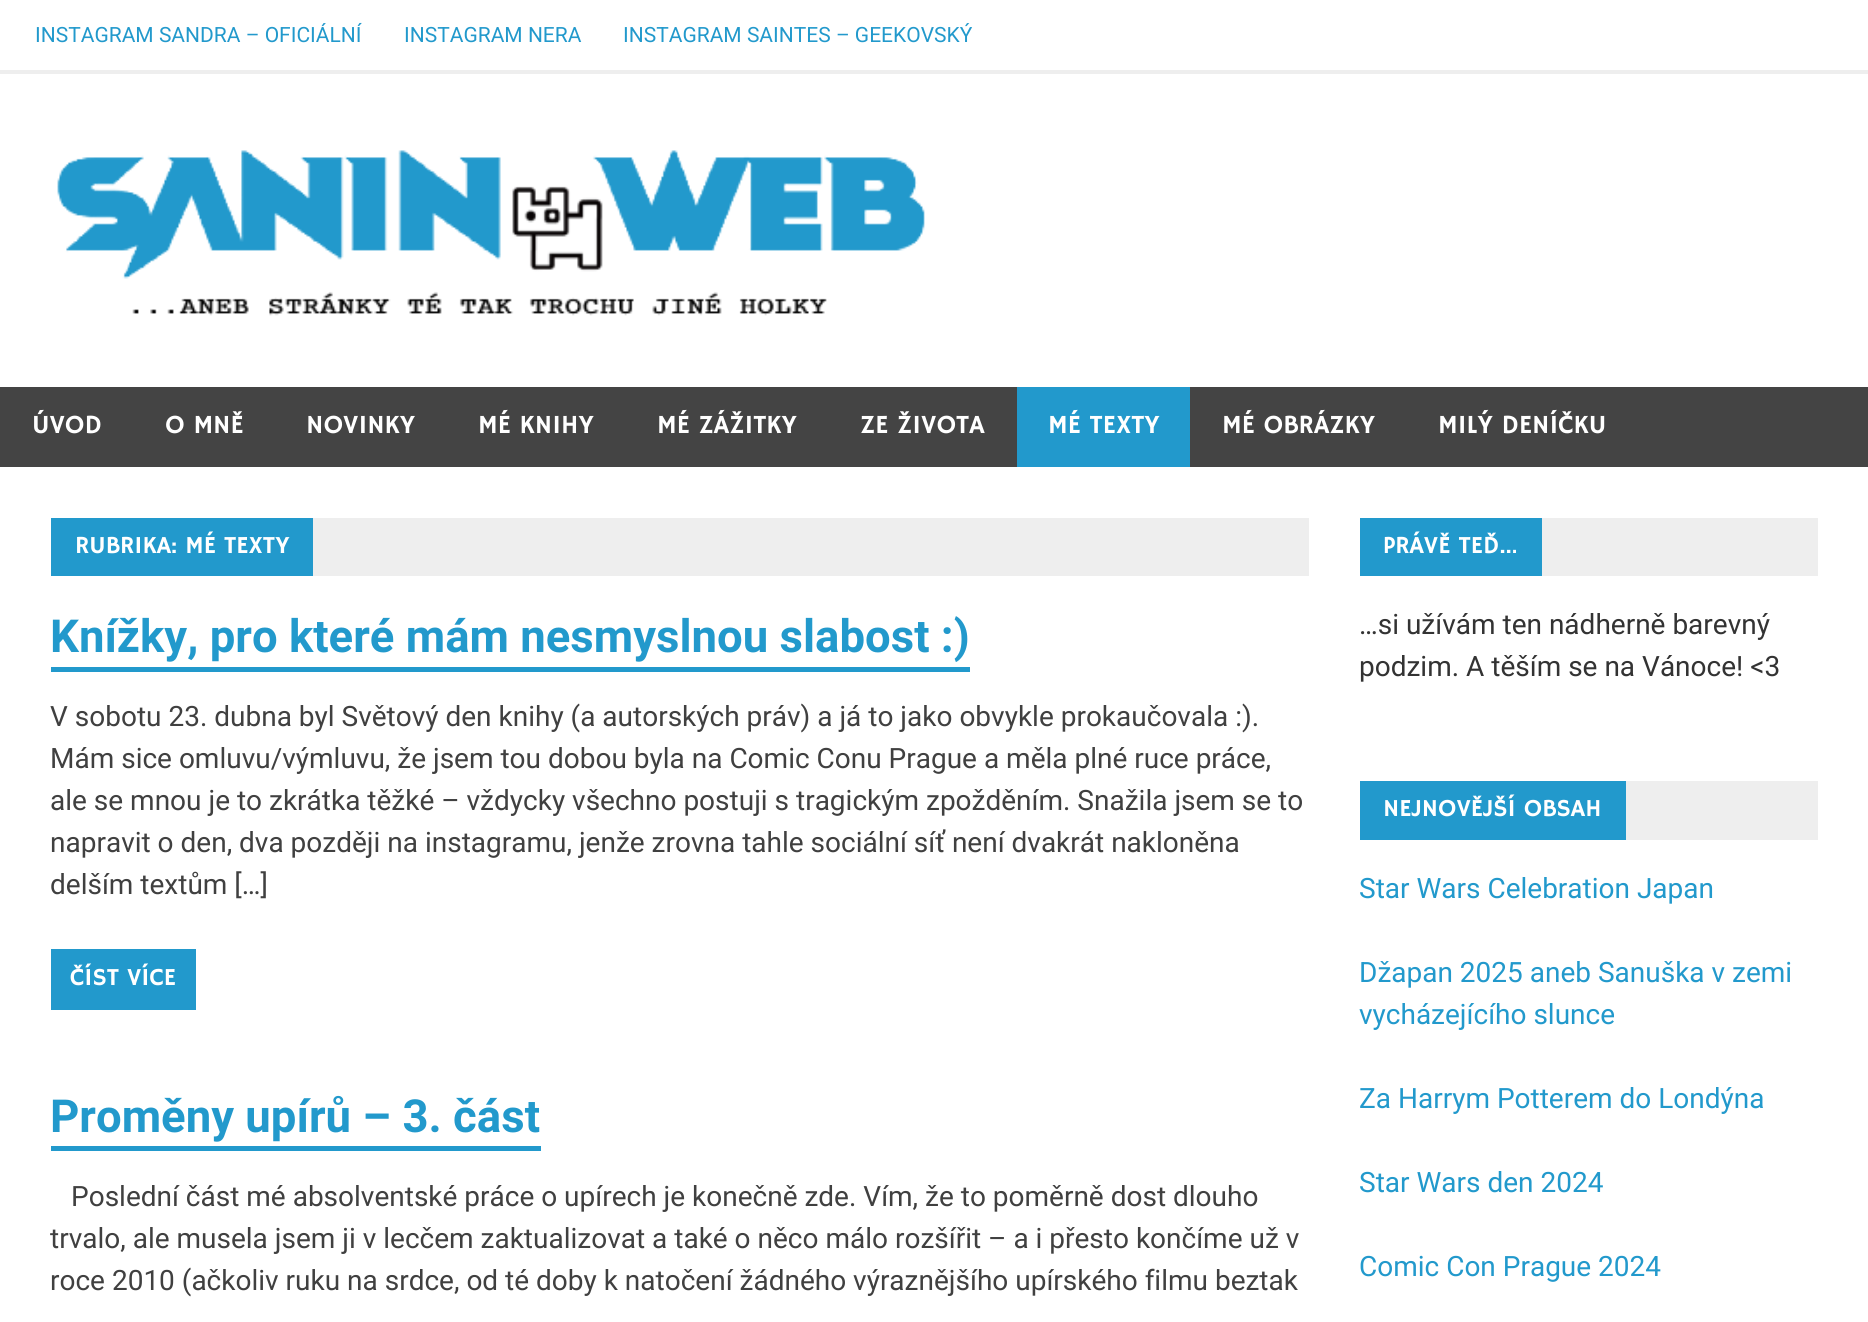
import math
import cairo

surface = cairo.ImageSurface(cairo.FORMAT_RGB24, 1868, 1322)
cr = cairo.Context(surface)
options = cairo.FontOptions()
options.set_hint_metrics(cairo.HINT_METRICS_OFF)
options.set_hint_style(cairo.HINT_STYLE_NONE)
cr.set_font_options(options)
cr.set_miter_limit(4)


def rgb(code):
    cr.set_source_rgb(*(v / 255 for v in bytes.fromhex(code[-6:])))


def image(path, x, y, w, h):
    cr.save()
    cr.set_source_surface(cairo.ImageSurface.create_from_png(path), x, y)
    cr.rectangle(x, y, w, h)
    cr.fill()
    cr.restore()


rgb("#ffffff")
cr.paint()
rgb("#eeeeee")
cr.rectangle(0, 70, 1868, 4)
cr.fill()
image("img/1.png", 57, 150, 868, 166)
for x, y, w, h, color in [
    (0, 387, 1868, 80, "#444444"),
    (1017, 387, 173, 80, "#2299cc"),
    (313, 518, 996, 58, "#eeeeee"),
    (51, 518, 262, 58, "#2299cc"),
    (51, 667, 919, 5, "#2299cc"),
    (51, 949, 145, 61, "#2299cc"),
    (51, 1146, 490, 5, "#2299cc"),
    (1542, 518, 276, 58, "#eeeeee"),
    (1360, 518, 182, 58, "#2299cc"),
    (1626, 781, 192, 59, "#eeeeee"),
    (1360, 781, 266, 59, "#2299cc"),
]:
    rgb(color)
    cr.rectangle(x, y, w, h)
    cr.fill()
cr.select_font_face("Roboto")
cr.set_font_size(21)
for x, y, s in [
    (35, 42, "INSTAGRAM SANDRA – OFICIÁLNÍ"),
    (404, 42, "INSTAGRAM NERA"),
    (623, 42, "INSTAGRAM SAINTES – GEEKOVSKÝ"),
]:
    cr.move_to(x, y)
    cr.show_text(s)
cr.select_font_face("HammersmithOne")
cr.set_font_size(26.25)
rgb("#ffffff")
for x, y, s in [
    (32, 433, "ÚVOD"),
    (165, 433, "O MNĚ"),
    (306, 433, "NOVINKY"),
    (478, 433, "MÉ KNIHY"),
    (657, 433, "MÉ ZÁŽITKY"),
    (860, 433, "ZE ŽIVOTA"),
    (1048, 433, "MÉ TEXTY"),
    (1222, 433, "MÉ OBRÁZKY"),
    (1438, 433, "MILÝ DENÍČKU"),
]:
    cr.move_to(x, y)
    cr.show_text(s)
cr.set_font_size(24.5)
cr.move_to(75, 553)
cr.show_text("RUBRIKA: MÉ TEXTY")
cr.select_font_face("Roboto", cairo.FONT_SLANT_NORMAL, cairo.FONT_WEIGHT_BOLD)
cr.set_font_size(45.5)
rgb("#2299cc")
cr.move_to(50, 652)
cr.show_text("Knížky, pro které mám nesmyslnou slabost :)")
cr.select_font_face("Roboto")
cr.set_font_size(28)
rgb("#404040")
for x, y, s in [
    (50, 726, "V sobotu 23. dubna byl Světový den knihy (a autorských práv) a já to jako obvykle prokaučovala :)."),
    (50, 768, "Mám sice omluvu/výmluvu, že jsem tou dobou byla na Comic Conu Prague a měla plné ruce práce,"),
    (50, 810, "ale se mnou je to zkrátka těžké – vždycky všechno postuji s tragickým zpožděním. Snažila jsem se to"),
    (50, 852, "napravit o den, dva později na instagramu, jenže zrovna tahle sociální síť není dvakrát nakloněna"),
    (50, 894, "delším textům […]"),
]:
    cr.move_to(x, y)
    cr.show_text(s)
cr.select_font_face("HammersmithOne")
cr.set_font_size(24.5)
rgb("#ffffff")
cr.move_to(70, 985)
cr.show_text("ČÍST VÍCE")
cr.select_font_face("Roboto", cairo.FONT_SLANT_NORMAL, cairo.FONT_WEIGHT_BOLD)
cr.set_font_size(45.5)
rgb("#2299cc")
cr.move_to(50, 1132)
cr.show_text("Proměny upírů – 3. část")
cr.select_font_face("Roboto")
cr.set_font_size(28)
rgb("#404040")
for x, y, s in [
    (71, 1206, "Poslední část mé absolventské práce o upírech je konečně zde. Vím, že to poměrně dost dlouho"),
    (50, 1248, "trvalo, ale musela jsem ji v lecčem zaktualizovat a také o něco málo rozšířit – a i přesto končíme už v"),
    (50, 1290, "roce 2010 (ačkoliv ruku na srdce, od té doby k natočení žádného výraznějšího upírského filmu beztak"),
]:
    cr.move_to(x, y)
    cr.show_text(s)
cr.select_font_face("HammersmithOne")
cr.set_font_size(24.5)
rgb("#ffffff")
cr.move_to(1383, 553)
cr.show_text("PRÁVĚ TEĎ…")
cr.select_font_face("Roboto")
cr.set_font_size(28)
rgb("#333333")
cr.move_to(1359, 634)
cr.show_text("…si užívám ten nádherně barevný")
cr.move_to(1359, 676)
cr.show_text("podzim. A těším se na Vánoce! <3")
cr.select_font_face("HammersmithOne")
cr.set_font_size(24.5)
rgb("#ffffff")
cr.move_to(1383, 816)
cr.show_text("NEJNOVĚJŠÍ OBSAH")
cr.select_font_face("Roboto")
cr.set_font_size(28)
rgb("#2299cc")
for x, y, s in [
    (1359, 898, "Star Wars Celebration Japan"),
    (1359, 982, "Džapan 2025 aneb Sanuška v zemi"),
    (1359, 1024, "vycházejícího slunce"),
    (1359, 1108, "Za Harrym Potterem do Londýna"),
    (1359, 1192, "Star Wars den 2024"),
    (1359, 1276, "Comic Con Prague 2024"),
]:
    cr.move_to(x, y)
    cr.show_text(s)
surface.write_to_png("page.png")
